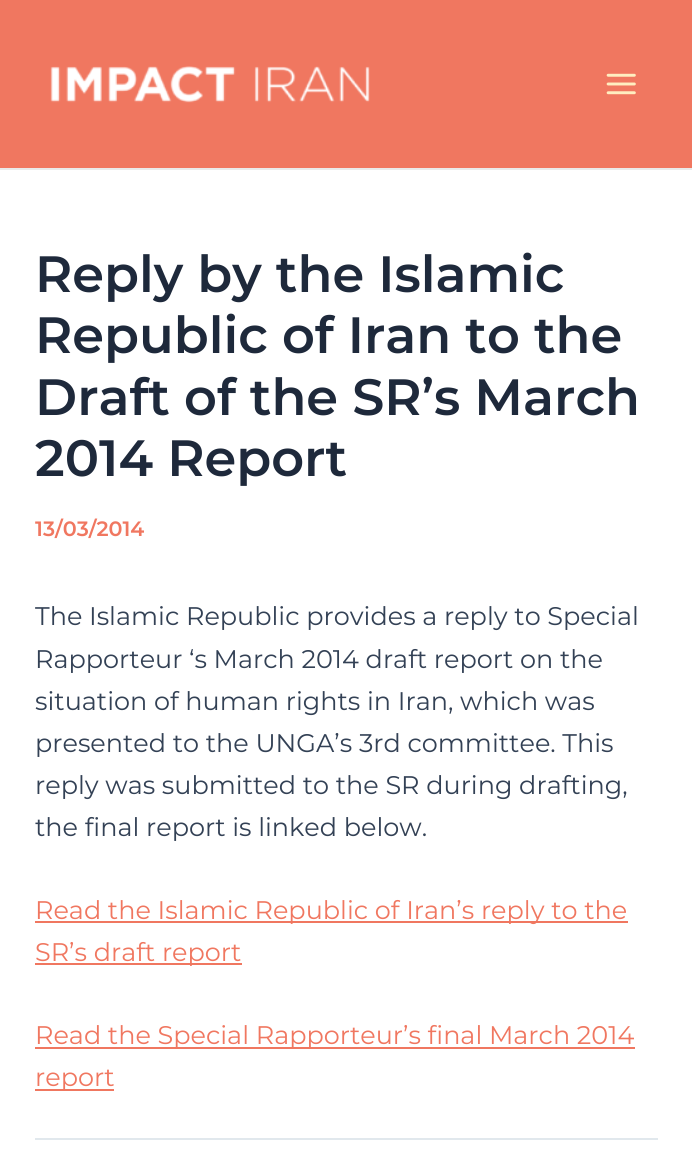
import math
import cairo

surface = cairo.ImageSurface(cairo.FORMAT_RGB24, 692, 1175)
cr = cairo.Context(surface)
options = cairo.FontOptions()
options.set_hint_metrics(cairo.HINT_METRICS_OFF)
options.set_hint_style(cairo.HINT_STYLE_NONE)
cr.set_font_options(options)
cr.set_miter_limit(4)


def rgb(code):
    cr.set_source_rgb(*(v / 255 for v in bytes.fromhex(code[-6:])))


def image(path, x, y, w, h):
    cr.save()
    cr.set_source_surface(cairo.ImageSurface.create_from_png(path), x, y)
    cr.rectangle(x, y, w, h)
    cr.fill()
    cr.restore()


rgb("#ffffff")
cr.paint()
rgb("#f07760")
cr.rectangle(0, 0, 692, 168)
cr.fill()
rgb("#eaeaea")
cr.rectangle(0, 168, 692, 2)
cr.fill()
image("img/1.png", 50, 66, 320, 37)
image("img/2.png", 606, 73, 30, 22)
for x, y, w, h, color in [
    (35, 921, 593, 2, "#f07760"),
    (35, 963, 207, 2, "#f07760"),
    (35, 1047, 600, 2, "#f07760"),
    (35, 1089, 79, 2, "#f07760"),
    (35, 1138, 623, 2, "#e1e8ed"),
]:
    rgb(color)
    cr.rectangle(x, y, w, h)
    cr.fill()
cr.select_font_face("Montserrat SemiBold")
cr.set_font_size(51)
rgb("#1e293b")
for x, y, s in [
    (35, 292, "Reply by the Islamic"),
    (35, 353, "Republic of Iran to the"),
    (35, 415, "Draft of the SR’s March"),
    (35, 476, "2014 Report"),
]:
    cr.move_to(x, y)
    cr.show_text(s)
cr.set_font_size(20.75)
rgb("#f07760")
cr.move_to(35, 536)
cr.show_text("13/03/2014")
cr.select_font_face("Montserrat")
cr.set_font_size(25.5)
rgb("#334155")
for x, y, s in [
    (35, 625, "The Islamic Republic provides a reply to Special"),
    (35, 668, "Rapporteur ‘s March 2014 draft report on the"),
    (35, 710, "situation of human rights in Iran, which was"),
    (35, 752, "presented to the UNGA’s 3rd committee. This"),
    (35, 794, "reply was submitted to the SR during drafting,"),
    (35, 836, "the final report is linked below."),
]:
    cr.move_to(x, y)
    cr.show_text(s)
rgb("#f07760")
for x, y, s in [
    (35, 919, "Read the Islamic Republic of Iran’s reply to the"),
    (35, 961, "SR’s draft report"),
    (35, 1044, "Read the Special Rapporteur’s final March 2014"),
    (35, 1086, "report"),
]:
    cr.move_to(x, y)
    cr.show_text(s)
surface.write_to_png("page.png")
